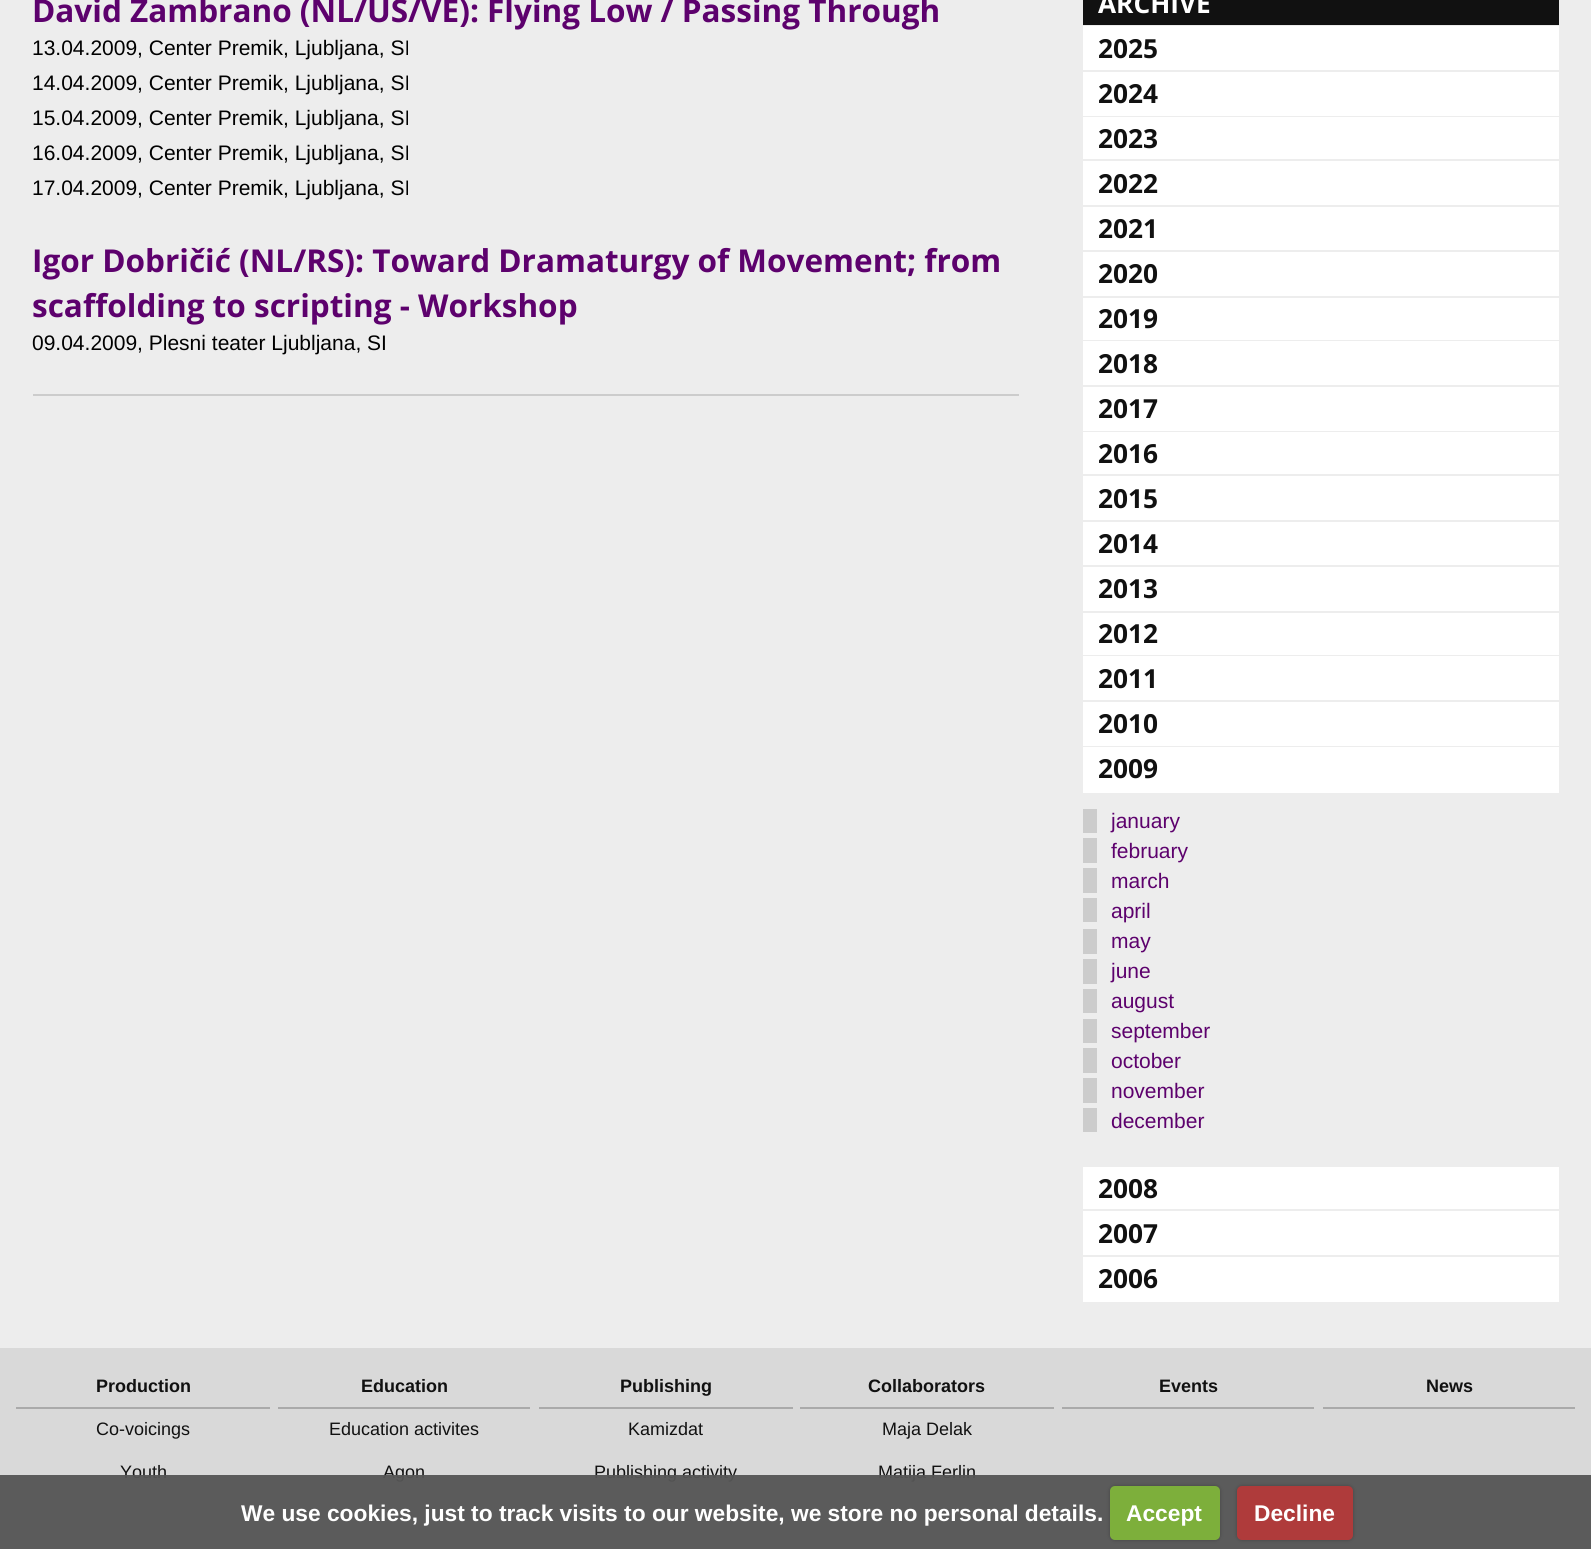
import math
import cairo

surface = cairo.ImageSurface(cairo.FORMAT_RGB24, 1591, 1549)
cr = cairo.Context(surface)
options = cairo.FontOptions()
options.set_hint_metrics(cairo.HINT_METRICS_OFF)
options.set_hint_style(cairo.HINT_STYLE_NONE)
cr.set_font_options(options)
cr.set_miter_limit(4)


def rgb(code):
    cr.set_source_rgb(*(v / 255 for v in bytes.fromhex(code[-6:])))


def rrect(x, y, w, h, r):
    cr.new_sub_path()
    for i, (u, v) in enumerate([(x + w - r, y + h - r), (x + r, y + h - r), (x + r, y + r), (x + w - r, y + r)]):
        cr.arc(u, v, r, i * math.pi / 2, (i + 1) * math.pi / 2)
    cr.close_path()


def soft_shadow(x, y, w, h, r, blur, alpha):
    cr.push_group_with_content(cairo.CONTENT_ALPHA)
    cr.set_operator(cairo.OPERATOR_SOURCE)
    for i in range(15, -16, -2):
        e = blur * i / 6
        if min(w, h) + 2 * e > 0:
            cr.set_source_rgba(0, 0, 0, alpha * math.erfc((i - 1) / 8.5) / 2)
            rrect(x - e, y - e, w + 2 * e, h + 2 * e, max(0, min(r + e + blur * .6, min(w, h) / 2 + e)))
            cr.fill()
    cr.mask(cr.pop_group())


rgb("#ededed")
cr.paint()
for x, y, w, h, color in [
    (33, 394, 986, 2, "#cccccc"),
    (1083, 0, 476, 25, "#111111"),
    (1083, 26, 476, 44, "#ffffff"),
    (1083, 72, 476, 44, "#ffffff"),
    (1083, 117, 476, 42, "#ffffff"),
    (1083, 161, 476, 44, "#ffffff"),
    (1083, 207, 476, 43, "#ffffff"),
    (1083, 252, 476, 44, "#ffffff"),
    (1083, 298, 476, 42, "#ffffff"),
    (1083, 341, 476, 44, "#ffffff"),
    (1083, 387, 476, 44, "#ffffff"),
    (1083, 432, 476, 42, "#ffffff"),
    (1083, 476, 476, 44, "#ffffff"),
    (1083, 522, 476, 43, "#ffffff"),
    (1083, 567, 476, 44, "#ffffff"),
    (1083, 613, 476, 42, "#ffffff"),
    (1083, 656, 476, 44, "#ffffff"),
    (1083, 702, 476, 44, "#ffffff"),
    (1083, 747, 476, 46, "#ffffff"),
    (1083, 809, 14, 24, "#cccccc"),
    (1083, 838, 14, 25, "#cccccc"),
    (1083, 868, 14, 25, "#cccccc"),
    (1083, 898, 14, 24, "#cccccc"),
    (1083, 929, 14, 25, "#cccccc"),
    (1083, 959, 14, 25, "#cccccc"),
    (1083, 989, 14, 24, "#cccccc"),
    (1083, 1019, 14, 24, "#cccccc"),
    (1083, 1048, 14, 25, "#cccccc"),
    (1083, 1078, 14, 25, "#cccccc"),
    (1083, 1108, 14, 24, "#cccccc"),
    (1083, 1167, 476, 42, "#ffffff"),
    (1083, 1211, 476, 44, "#ffffff"),
    (1083, 1257, 476, 45, "#ffffff"),
    (0, 1348, 1591, 201, "#d9d9d9"),
]:
    rgb(color)
    cr.rectangle(x, y, w, h)
    cr.fill()
rgb("#aaaaaa")
cr.new_path()
cr.move_to(16, 1407)
cr.line_to(16, 1409)
cr.line_to(270, 1409)
cr.line_to(270, 1367)
cr.line_to(270, 1407)
cr.close_path()
cr.fill()
cr.new_path()
cr.move_to(278, 1367)
cr.line_to(278, 1409)
cr.line_to(530, 1409)
cr.line_to(530, 1407)
cr.line_to(278, 1407)
cr.close_path()
cr.fill()
cr.new_path()
cr.move_to(539, 1407)
cr.line_to(539, 1409)
cr.line_to(793, 1409)
cr.line_to(793, 1367)
cr.line_to(793, 1407)
cr.close_path()
cr.fill()
cr.new_path()
cr.move_to(800, 1407)
cr.line_to(800, 1409)
cr.line_to(1054, 1409)
cr.line_to(1054, 1367)
cr.line_to(1054, 1407)
cr.close_path()
cr.fill()
cr.new_path()
cr.move_to(1062, 1367)
cr.line_to(1062, 1409)
cr.line_to(1314, 1409)
cr.line_to(1314, 1407)
cr.line_to(1062, 1407)
cr.close_path()
cr.fill()
cr.rectangle(1323, 1407, 252, 2)
cr.fill()
cr.select_font_face("Open Sans", cairo.FONT_SLANT_NORMAL, cairo.FONT_WEIGHT_BOLD)
cr.set_font_size(31.5)
rgb("#5d016d")
cr.move_to(32, 22)
cr.show_text("David Zambrano (NL/US/VE): Flying Low / Passing Through")
cr.select_font_face("Liberation Sans")
cr.set_font_size(21)
rgb("#000000")
for x, y, s in [
    (32, 55, "13.04.2009, Center Premik, Ljubljana, SI"),
    (32, 90, "14.04.2009, Center Premik, Ljubljana, SI"),
    (32, 125, "15.04.2009, Center Premik, Ljubljana, SI"),
    (32, 160, "16.04.2009, Center Premik, Ljubljana, SI"),
    (32, 195, "17.04.2009, Center Premik, Ljubljana, SI"),
]:
    cr.move_to(x, y)
    cr.show_text(s)
cr.select_font_face("Open Sans", cairo.FONT_SLANT_NORMAL, cairo.FONT_WEIGHT_BOLD)
cr.set_font_size(31.5)
rgb("#5d016d")
cr.move_to(32, 272)
cr.show_text("Igor Dobričić (NL/RS): Toward Dramaturgy of Movement; from")
cr.move_to(32, 317)
cr.show_text("scaffolding to scripting - Workshop")
cr.select_font_face("Liberation Sans")
cr.set_font_size(21)
rgb("#000000")
cr.move_to(32, 350)
cr.show_text("09.04.2009, Plesni teater Ljubljana, SI")
cr.select_font_face("Open Sans", cairo.FONT_SLANT_NORMAL, cairo.FONT_WEIGHT_BOLD)
cr.set_font_size(26.25)
rgb("#ffffff")
cr.move_to(1098, 13)
cr.show_text("ARCHIVE")
rgb("#111111")
for x, y, s in [
    (1098, 58, "2025"),
    (1098, 103, "2024"),
    (1098, 148, "2023"),
    (1098, 193, "2022"),
    (1098, 238, "2021"),
    (1098, 283, "2020"),
    (1098, 328, "2019"),
    (1098, 373, "2018"),
    (1098, 418, "2017"),
    (1098, 463, "2016"),
    (1098, 508, "2015"),
    (1098, 553, "2014"),
    (1098, 598, "2013"),
    (1098, 643, "2012"),
    (1098, 688, "2011"),
    (1098, 733, "2010"),
    (1098, 778, "2009"),
]:
    cr.move_to(x, y)
    cr.show_text(s)
cr.select_font_face("Liberation Sans")
cr.set_font_size(21)
rgb("#5d016d")
for x, y, s in [
    (1111, 828, "january"),
    (1111, 858, "february"),
    (1111, 888, "march"),
    (1111, 918, "april"),
    (1111, 948, "may"),
    (1111, 978, "june"),
    (1111, 1008, "august"),
    (1111, 1038, "september"),
    (1111, 1068, "october"),
    (1111, 1098, "november"),
    (1111, 1128, "december"),
]:
    cr.move_to(x, y)
    cr.show_text(s)
cr.select_font_face("Open Sans", cairo.FONT_SLANT_NORMAL, cairo.FONT_WEIGHT_BOLD)
cr.set_font_size(26.25)
rgb("#111111")
for x, y, s in [
    (1098, 1198, "2008"),
    (1098, 1243, "2007"),
    (1098, 1288, "2006"),
]:
    cr.move_to(x, y)
    cr.show_text(s)
cr.select_font_face("Liberation Sans", cairo.FONT_SLANT_NORMAL, cairo.FONT_WEIGHT_BOLD)
cr.set_font_size(18)
cr.move_to(96, 1392)
cr.show_text("Production")
cr.select_font_face("Liberation Sans")
cr.move_to(96, 1435)
cr.show_text("Co-voicings")
cr.move_to(120, 1478)
cr.show_text("Youth")
cr.select_font_face("Liberation Sans", cairo.FONT_SLANT_NORMAL, cairo.FONT_WEIGHT_BOLD)
cr.move_to(361, 1392)
cr.show_text("Education")
cr.select_font_face("Liberation Sans")
cr.move_to(329, 1435)
cr.show_text("Education activites")
cr.move_to(383, 1478)
cr.show_text("Agon")
cr.select_font_face("Liberation Sans", cairo.FONT_SLANT_NORMAL, cairo.FONT_WEIGHT_BOLD)
cr.move_to(620, 1392)
cr.show_text("Publishing")
cr.select_font_face("Liberation Sans")
cr.move_to(628, 1435)
cr.show_text("Kamizdat")
cr.move_to(594, 1478)
cr.show_text("Publishing activity")
cr.select_font_face("Liberation Sans", cairo.FONT_SLANT_NORMAL, cairo.FONT_WEIGHT_BOLD)
cr.move_to(868, 1392)
cr.show_text("Collaborators")
cr.select_font_face("Liberation Sans")
cr.move_to(882, 1435)
cr.show_text("Maja Delak")
cr.move_to(878, 1478)
cr.show_text("Matija Ferlin")
cr.select_font_face("Liberation Sans", cairo.FONT_SLANT_NORMAL, cairo.FONT_WEIGHT_BOLD)
cr.move_to(1159, 1392)
cr.show_text("Events")
cr.move_to(1426, 1392)
cr.show_text("News")
cr.set_source_rgba(0.337, 0.337, 0.337, 0.95)
cr.rectangle(0, 1475, 1591, 74)
cr.fill()
cr.set_font_size(22.75)
rgb("#ffffff")
cr.move_to(241, 1521)
cr.show_text("We use cookies, just to track visits to our website, we store no personal details.")
rgb("#000000")
soft_shadow(1110, 1486, 110, 54, 5, 2, 0.25)
rgb("#7daf3b")
rrect(1110, 1486, 110, 54, 5)
cr.fill()
rgb("#ffffff")
cr.move_to(1126, 1521)
cr.show_text("Accept")
rgb("#000000")
soft_shadow(1237, 1486, 116, 54, 5, 2, 0.25)
rgb("#af3b3b")
rrect(1237, 1486, 116, 54, 5)
cr.fill()
rgb("#ffffff")
cr.move_to(1254, 1521)
cr.show_text("Decline")
surface.write_to_png("page.png")
